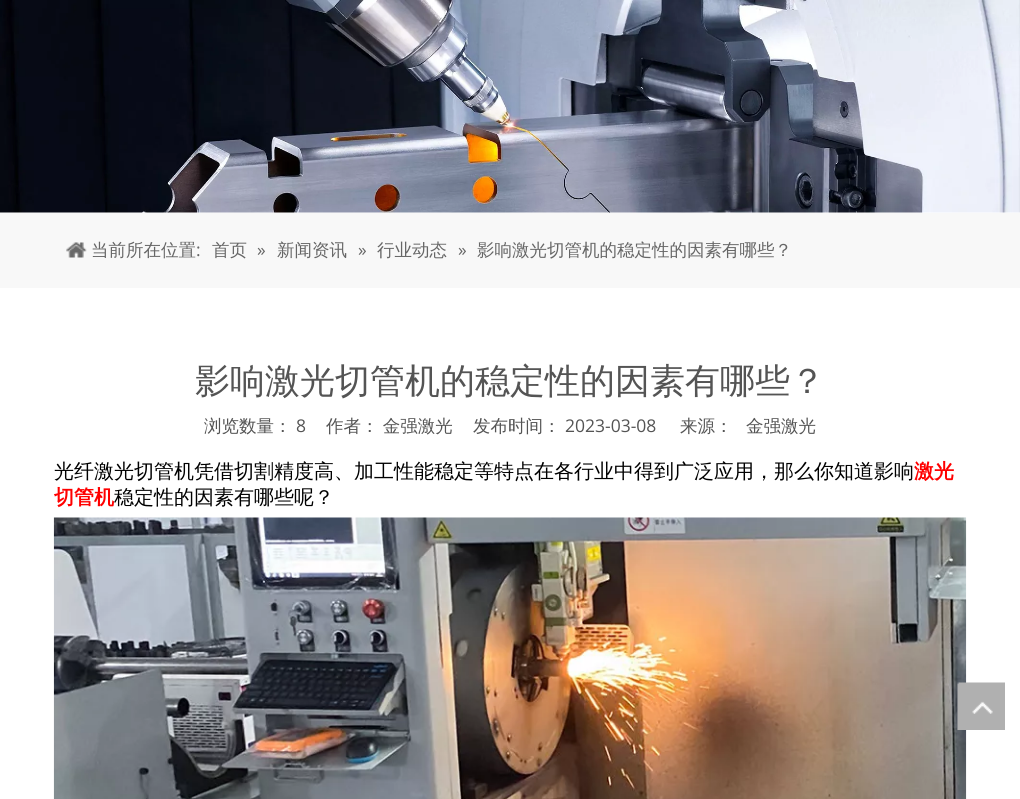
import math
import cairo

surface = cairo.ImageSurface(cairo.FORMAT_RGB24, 1020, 799)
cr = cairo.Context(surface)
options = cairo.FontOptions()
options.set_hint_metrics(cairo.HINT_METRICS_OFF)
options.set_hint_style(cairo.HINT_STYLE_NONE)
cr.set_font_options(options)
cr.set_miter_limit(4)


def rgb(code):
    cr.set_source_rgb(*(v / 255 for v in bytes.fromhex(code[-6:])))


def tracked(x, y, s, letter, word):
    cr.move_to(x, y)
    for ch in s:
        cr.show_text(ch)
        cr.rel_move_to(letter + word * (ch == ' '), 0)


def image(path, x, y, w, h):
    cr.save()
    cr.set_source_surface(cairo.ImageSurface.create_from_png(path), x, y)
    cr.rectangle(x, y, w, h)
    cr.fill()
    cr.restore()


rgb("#ffffff")
cr.paint()
image("img/1.png", 0, 0, 1020, 213)
rgb("#f8f8f8")
cr.rectangle(0, 213, 1020, 75)
cr.fill()
image("img/2.png", 66, 242, 21, 16)
image("img/3.png", 53, 517, 914, 282)
image("img/4.png", 957, 682, 48, 48)
cr.select_font_face("WenQuanYi Zen Hei Medium")
cr.set_font_size(17.5)
rgb("#666666")
cr.move_to(91, 256)
cr.show_text("当前所在位置")
cr.select_font_face("Open Sans")
cr.move_to(196, 256)
cr.show_text(":")
cr.select_font_face("WenQuanYi Zen Hei Medium")
cr.move_to(212, 256)
cr.show_text("首页")
cr.select_font_face("Open Sans")
cr.move_to(257, 256)
cr.show_text("»")
cr.select_font_face("WenQuanYi Zen Hei Medium")
cr.move_to(277, 256)
cr.show_text("新闻资讯")
cr.select_font_face("Open Sans")
cr.move_to(358, 256)
cr.show_text("»")
cr.select_font_face("WenQuanYi Zen Hei Medium")
cr.move_to(377, 256)
cr.show_text("行业动态")
cr.select_font_face("Open Sans")
cr.move_to(458, 256)
cr.show_text("»")
cr.select_font_face("WenQuanYi Zen Hei Medium")
cr.move_to(477, 256)
cr.show_text("影响激光切管机的稳定性的因素有哪些？")
cr.set_font_size(35)
rgb("#545454")
cr.move_to(195, 393)
cr.show_text("影响激光切管机的稳定性的因素有哪些？")
cr.set_font_size(17.5)
cr.move_to(204, 432)
cr.show_text("浏览数量：")
cr.select_font_face("Open Sans")
cr.move_to(296, 432)
cr.show_text("8")
cr.select_font_face("WenQuanYi Zen Hei Medium")
tracked(326, 432, "作者： 金强激光", 0, -1)
cr.move_to(473, 432)
cr.show_text("发布时间：")
cr.select_font_face("Open Sans")
cr.move_to(565, 432)
cr.show_text("2023-03-08")
cr.select_font_face("WenQuanYi Zen Hei Medium")
cr.move_to(680, 432)
cr.show_text("来源：")
cr.move_to(746, 432)
cr.show_text("金强激光")
cr.set_font_size(20)
rgb("#000000")
cr.move_to(54, 478)
cr.show_text("光纤激光切管机凭借切割精度高、加工性能稳定等特点在各行业中得到广泛应用，那么你知道影响")
cr.select_font_face("WenQuanYi Zen Hei", cairo.FONT_SLANT_NORMAL, cairo.FONT_WEIGHT_BOLD)
rgb("#ff0000")
cr.move_to(914, 478)
cr.show_text("激光")
cr.move_to(54, 504)
cr.show_text("切管机")
cr.select_font_face("WenQuanYi Zen Hei Medium")
rgb("#000000")
cr.move_to(114, 504)
cr.show_text("稳定性的因素有哪些呢？")
surface.write_to_png("page.png")
